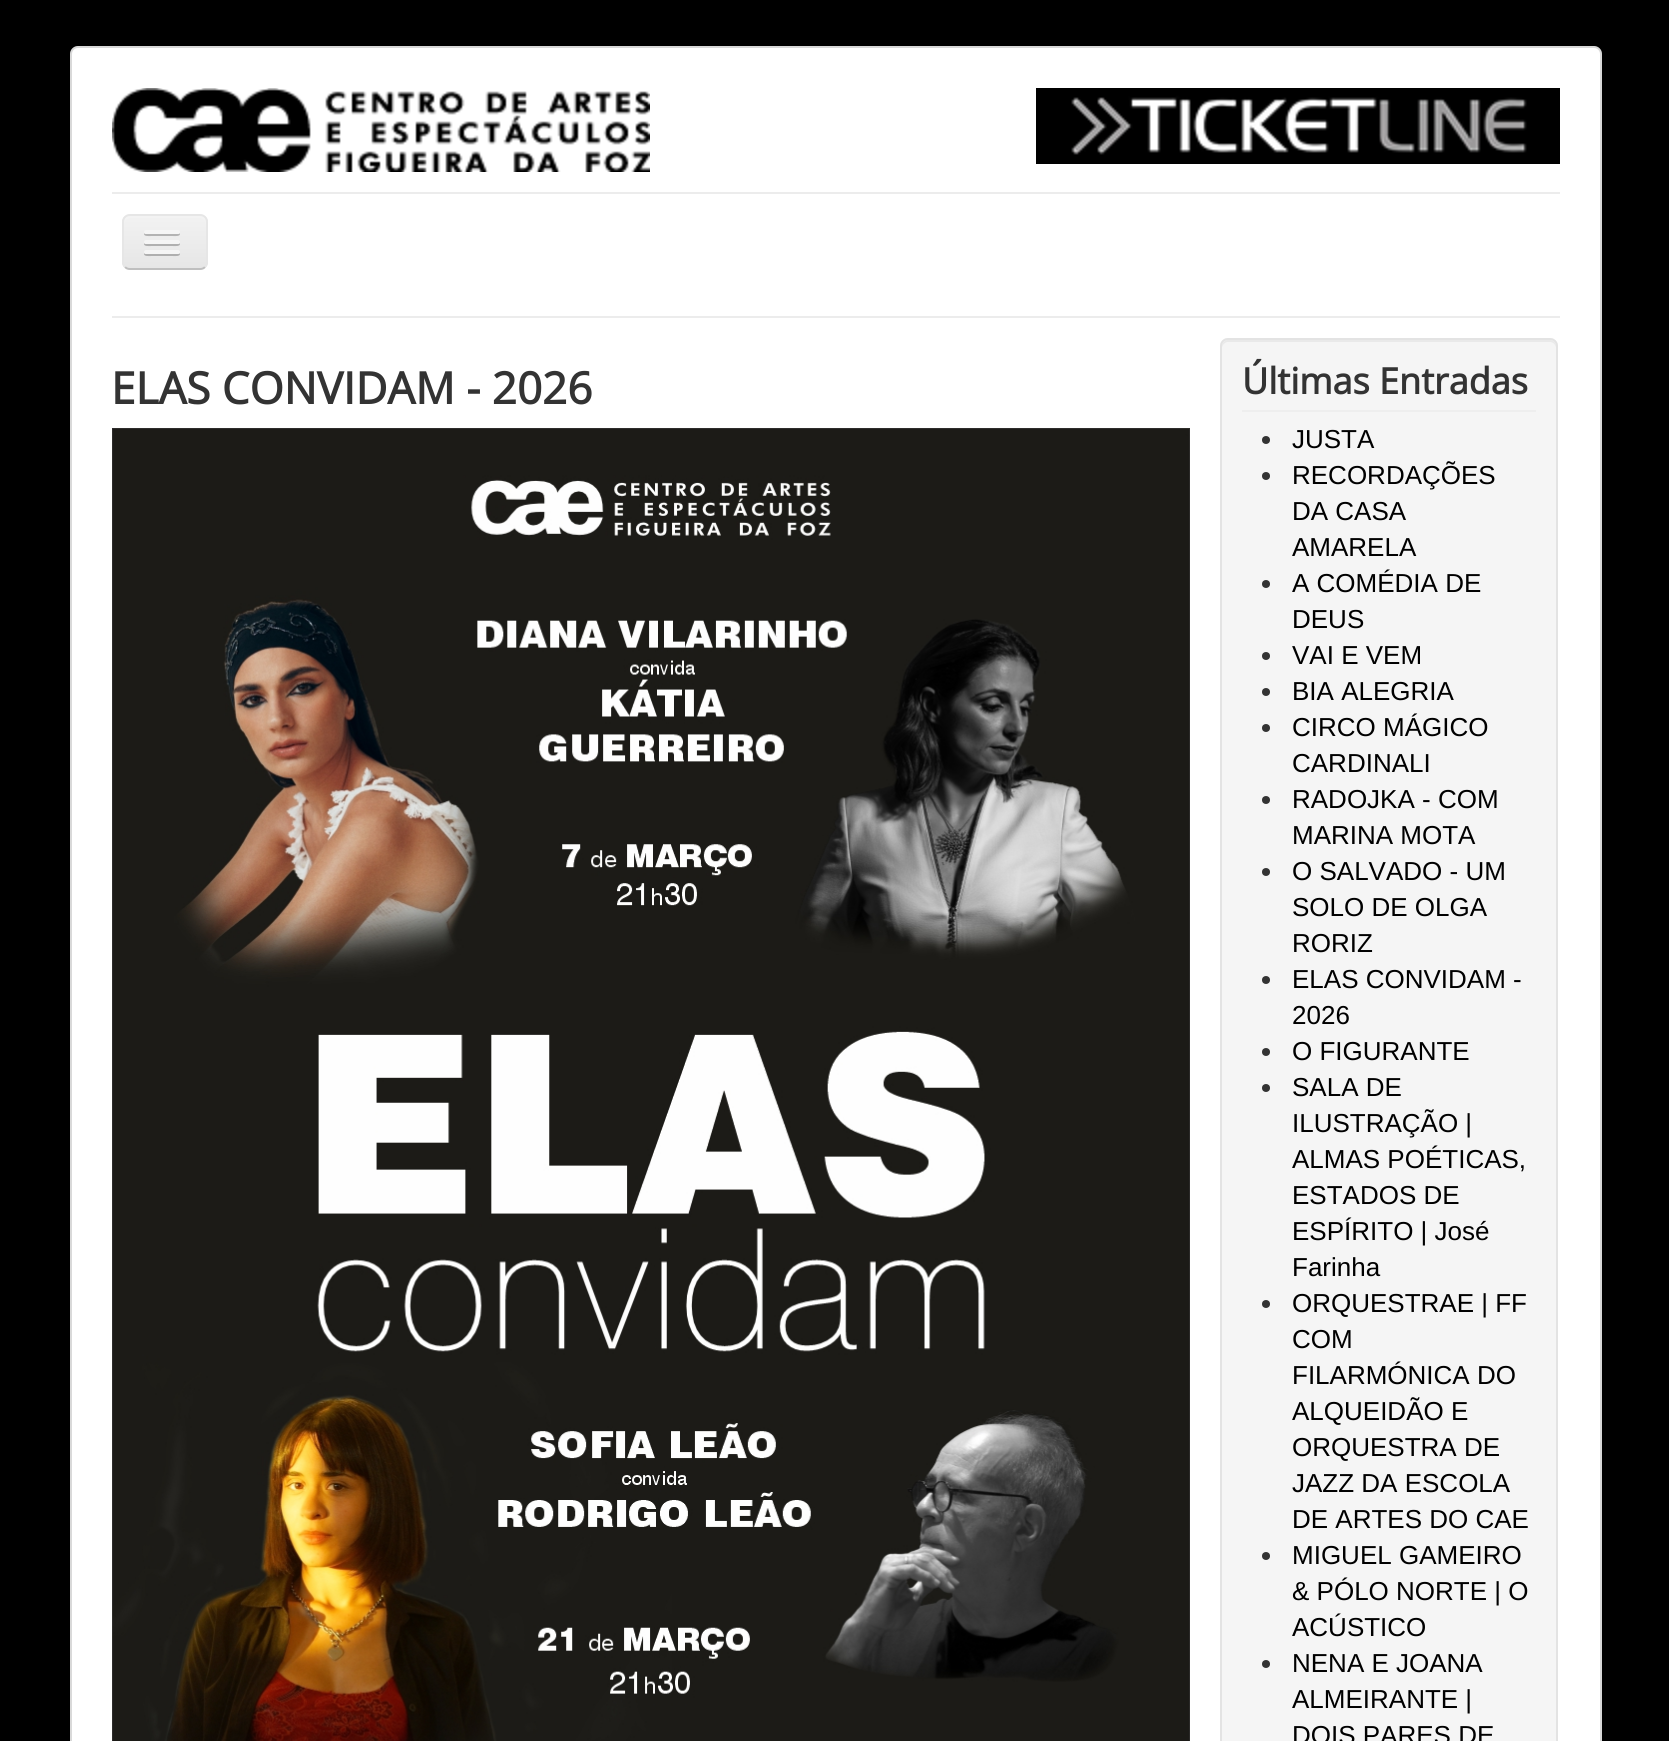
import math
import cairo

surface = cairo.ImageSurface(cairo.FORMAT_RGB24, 1669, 1741)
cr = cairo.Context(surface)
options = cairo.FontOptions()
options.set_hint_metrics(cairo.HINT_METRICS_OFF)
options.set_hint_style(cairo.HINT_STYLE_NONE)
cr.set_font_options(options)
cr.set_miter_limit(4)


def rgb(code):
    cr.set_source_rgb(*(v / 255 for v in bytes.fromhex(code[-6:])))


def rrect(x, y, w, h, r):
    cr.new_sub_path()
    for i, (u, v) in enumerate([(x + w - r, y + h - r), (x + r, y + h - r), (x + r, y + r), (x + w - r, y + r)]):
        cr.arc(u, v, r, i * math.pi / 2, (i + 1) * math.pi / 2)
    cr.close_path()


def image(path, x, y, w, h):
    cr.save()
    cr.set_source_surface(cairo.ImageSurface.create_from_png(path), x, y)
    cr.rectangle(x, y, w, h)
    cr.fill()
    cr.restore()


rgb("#000000")
cr.paint()
rgb("#ffffff")
rrect(70, 46, 1532, 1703, 8)
cr.fill()
rrect(71, 47, 1530, 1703, 7)
cr.set_source_rgba(0, 0, 0, 0.15)
cr.stroke()
image("img/1.png", 112, 88, 538, 84)
image("img/2.png", 1036, 88, 524, 76)
rgb("#ececec")
cr.rectangle(112, 192, 1448, 2)
cr.fill()
cr.rectangle(112, 316, 1448, 2)
cr.fill()
cr.save()
rrect(122, 214, 86, 56, 8)
cr.clip()
gradient = cairo.LinearGradient(165, 216, 165, 268)
gradient.add_color_stop_rgba(0, 0.949, 0.949, 0.949, 1)
gradient.add_color_stop_rgba(1, 0.902, 0.902, 0.902, 1)
cr.set_source(gradient)
cr.rectangle(122, 216, 86, 52)
cr.fill()
cr.restore()
rgb("#f3f3f3")
cr.new_path()
cr.move_to(130, 218)
cr.line_to(200, 218)
cr.curve_to(203, 218, 206, 221, 206, 224)
cr.curve_to(206, 213, 197, 216, 188, 216)
cr.line_to(142, 216)
cr.curve_to(133, 216, 124, 213, 124, 224)
cr.curve_to(124, 221, 127, 218, 130, 218)
cr.close_path()
cr.fill()
cr.new_path()
cr.move_to(205, 267)
cr.curve_to(203.5, 268.5, 202, 269, 200, 269)
cr.line_to(130, 269)
cr.curve_to(128, 269, 126.5, 268.5, 125, 267)
rgb("#bfbfbf")
cr.stroke()
cr.new_path()
cr.move_to(125, 267)
cr.curve_to(123.5, 265.5, 123, 264, 123, 262)
cr.line_to(123, 222)
cr.curve_to(123, 220, 123.5, 218.5, 125, 217)
cr.curve_to(126.5, 215.5, 128, 215, 130, 215)
cr.line_to(200, 215)
cr.curve_to(202, 215, 203.5, 215.5, 205, 217)
cr.curve_to(206.5, 218.5, 207, 220, 207, 222)
cr.line_to(207, 262)
cr.curve_to(207, 264, 206.5, 265.5, 205, 267)
rgb("#e6e6e6")
cr.stroke()
rgb("#b3b3b3")
cr.new_path()
cr.move_to(144.5, 233)
cr.curve_to(142, 237, 151, 236, 151.5, 236)
cr.line_to(172.5, 236)
cr.curve_to(173, 236, 182, 237, 179.5, 233)
cr.curve_to(179.5, 233.5, 178.5, 234, 178, 234)
cr.line_to(146, 234)
cr.curve_to(145.5, 234, 144.5, 233.5, 144.5, 233)
cr.close_path()
cr.fill()
rgb("#f5f5f5")
rrect(144, 230, 36, 4, 2)
cr.fill()
rgb("#b0b0b0")
cr.new_path()
cr.move_to(144.5, 243)
cr.curve_to(142, 247, 151, 246, 151.5, 246)
cr.line_to(172.5, 246)
cr.curve_to(173, 246, 182, 247, 179.5, 243)
cr.curve_to(179.5, 243.5, 178.5, 244, 178, 244)
cr.line_to(146, 244)
cr.curve_to(145.5, 244, 144.5, 243.5, 144.5, 243)
cr.close_path()
cr.fill()
rgb("#f5f5f5")
rrect(144, 240, 36, 4, 2)
cr.fill()
rgb("#afafaf")
cr.new_path()
cr.move_to(144.5, 253)
cr.curve_to(142, 257, 151, 256, 151.5, 256)
cr.line_to(172.5, 256)
cr.curve_to(173, 256, 182, 257, 179.5, 253)
cr.curve_to(179.5, 253.5, 178.5, 254, 178, 254)
cr.line_to(146, 254)
cr.curve_to(145.5, 254, 144.5, 253.5, 144.5, 253)
cr.close_path()
cr.fill()
rgb("#f5f5f5")
rrect(144, 250, 36, 4, 2)
cr.fill()
image("img/3.png", 112, 428, 1078, 1313)
rrect(1220, 338, 338, 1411, 8)
cr.fill()
rgb("#e9e9e9")
cr.new_path()
cr.move_to(1228, 342)
cr.line_to(1550, 342)
cr.curve_to(1553, 342, 1556, 345, 1556, 348)
cr.line_to(1556, 346)
cr.curve_to(1556, 343, 1553, 340, 1550, 340)
cr.line_to(1228, 340)
cr.curve_to(1225, 340, 1222, 343, 1222, 346)
cr.line_to(1222, 348)
cr.curve_to(1222, 345, 1225, 342, 1228, 342)
cr.close_path()
cr.fill()
rrect(1221, 339, 336, 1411, 7)
rgb("#e3e3e3")
cr.stroke()
rgb("#eeeeee")
cr.rectangle(1242, 410, 294, 2)
cr.fill()
rgb("#333333")
cr.arc(1266, 440, 4, 0, 2 * math.pi)
cr.fill()
cr.arc(1266, 476, 4, 0, 2 * math.pi)
cr.fill()
cr.arc(1266, 584, 4, 0, 2 * math.pi)
cr.fill()
cr.arc(1266, 656, 4, 0, 2 * math.pi)
cr.fill()
cr.arc(1266, 692, 4, 0, 2 * math.pi)
cr.fill()
cr.arc(1266, 728, 4, 0, 2 * math.pi)
cr.fill()
cr.arc(1266, 800, 4, 0, 2 * math.pi)
cr.fill()
cr.arc(1266, 872, 4, 0, 2 * math.pi)
cr.fill()
cr.arc(1266, 980, 4, 0, 2 * math.pi)
cr.fill()
cr.arc(1266, 1052, 4, 0, 2 * math.pi)
cr.fill()
cr.arc(1266, 1088, 4, 0, 2 * math.pi)
cr.fill()
cr.arc(1266, 1304, 4, 0, 2 * math.pi)
cr.fill()
cr.arc(1266, 1556, 4, 0, 2 * math.pi)
cr.fill()
cr.arc(1266, 1664, 4, 0, 2 * math.pi)
cr.fill()
cr.select_font_face("Open Sans", cairo.FONT_SLANT_NORMAL, cairo.FONT_WEIGHT_BOLD)
cr.set_font_size(44)
cr.move_to(111, 404)
cr.show_text("ELAS CONVIDAM - 2026")
cr.set_font_size(36)
cr.move_to(1242, 394)
cr.show_text("Últimas Entradas")
cr.select_font_face("Liberation Sans")
cr.set_font_size(26)
rgb("#000000")
for x, y, s in [
    (1292, 448, "JUSTA"),
    (1292, 484, "RECORDAÇÕES"),
    (1292, 520, "DA CASA"),
    (1292, 556, "AMARELA"),
    (1292, 592, "A COMÉDIA DE"),
    (1292, 628, "DEUS"),
    (1292, 664, "VAI E VEM"),
    (1292, 700, "BIA ALEGRIA"),
    (1292, 736, "CIRCO MÁGICO"),
    (1292, 772, "CARDINALI"),
    (1292, 808, "RADOJKA - COM"),
    (1292, 844, "MARINA MOTA"),
    (1292, 880, "O SALVADO - UM"),
    (1292, 916, "SOLO DE OLGA"),
    (1292, 952, "RORIZ"),
    (1292, 988, "ELAS CONVIDAM -"),
    (1292, 1024, "2026"),
    (1292, 1060, "O FIGURANTE"),
    (1292, 1096, "SALA DE"),
    (1292, 1132, "ILUSTRAÇÃO |"),
    (1292, 1168, "ALMAS POÉTICAS,"),
    (1292, 1204, "ESTADOS DE"),
    (1292, 1240, "ESPÍRITO | José"),
    (1292, 1276, "Farinha"),
    (1292, 1312, "ORQUESTRAE | FF"),
    (1292, 1348, "COM"),
    (1292, 1384, "FILARMÓNICA DO"),
    (1292, 1420, "ALQUEIDÃO E"),
    (1292, 1456, "ORQUESTRA DE"),
    (1292, 1492, "JAZZ DA ESCOLA"),
    (1292, 1528, "DE ARTES DO CAE"),
    (1292, 1564, "MIGUEL GAMEIRO"),
    (1292, 1600, "& PÓLO NORTE | O"),
    (1292, 1636, "ACÚSTICO"),
    (1292, 1672, "NENA E JOANA"),
    (1292, 1708, "ALMEIRANTE |"),
    (1292, 1744, "DOIS PARES DE"),
]:
    cr.move_to(x, y)
    cr.show_text(s)
surface.write_to_png("page.png")
